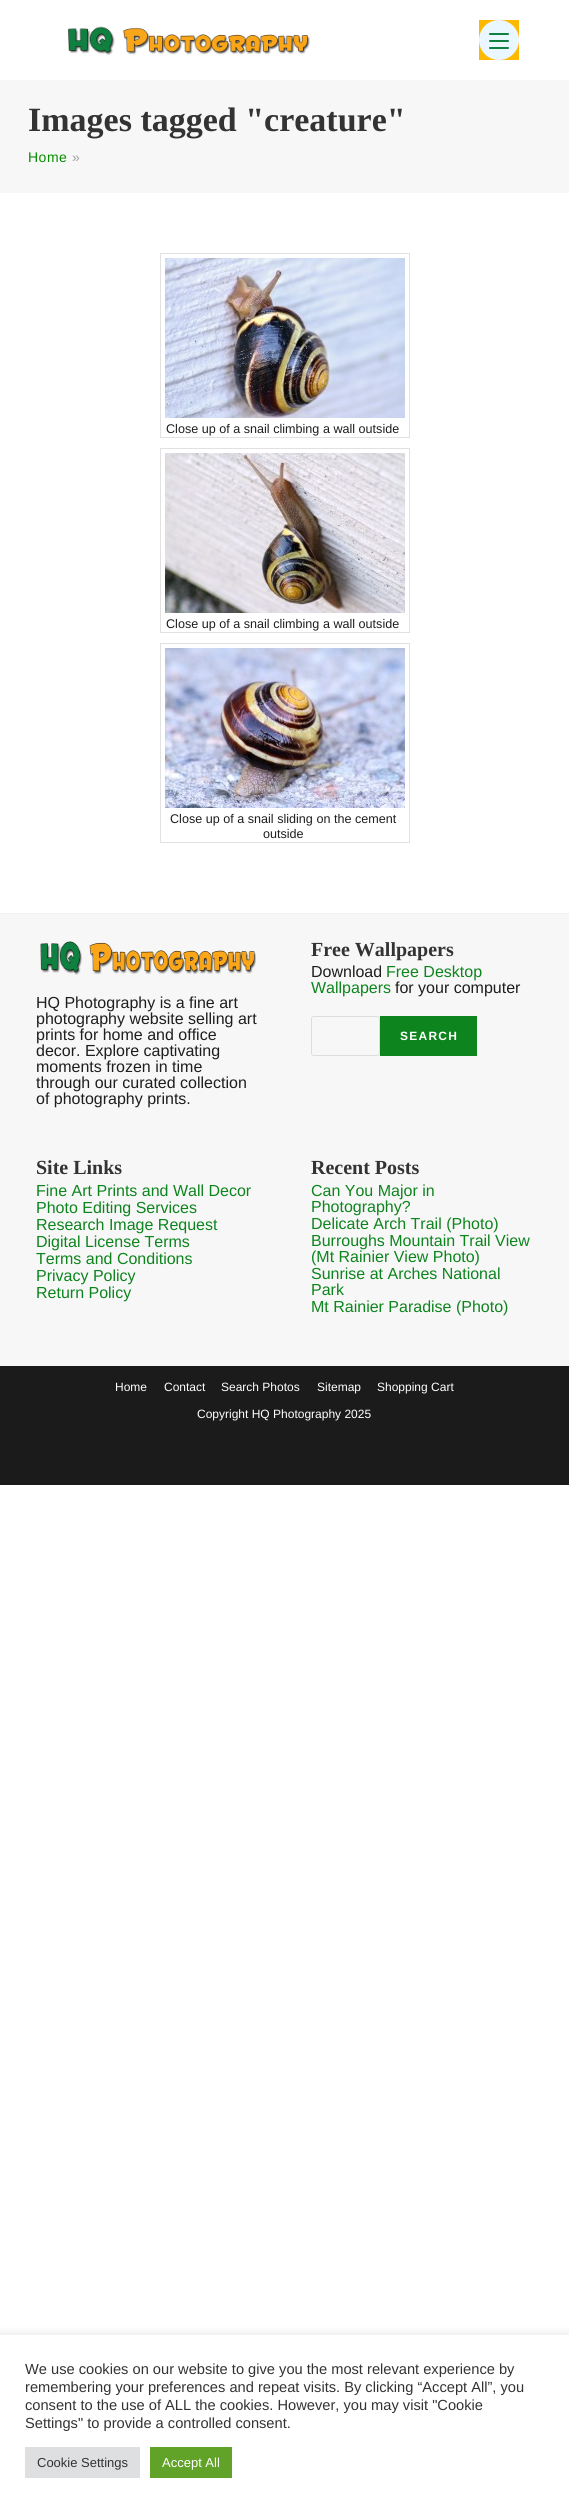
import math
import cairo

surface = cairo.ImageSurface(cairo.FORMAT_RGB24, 569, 2508)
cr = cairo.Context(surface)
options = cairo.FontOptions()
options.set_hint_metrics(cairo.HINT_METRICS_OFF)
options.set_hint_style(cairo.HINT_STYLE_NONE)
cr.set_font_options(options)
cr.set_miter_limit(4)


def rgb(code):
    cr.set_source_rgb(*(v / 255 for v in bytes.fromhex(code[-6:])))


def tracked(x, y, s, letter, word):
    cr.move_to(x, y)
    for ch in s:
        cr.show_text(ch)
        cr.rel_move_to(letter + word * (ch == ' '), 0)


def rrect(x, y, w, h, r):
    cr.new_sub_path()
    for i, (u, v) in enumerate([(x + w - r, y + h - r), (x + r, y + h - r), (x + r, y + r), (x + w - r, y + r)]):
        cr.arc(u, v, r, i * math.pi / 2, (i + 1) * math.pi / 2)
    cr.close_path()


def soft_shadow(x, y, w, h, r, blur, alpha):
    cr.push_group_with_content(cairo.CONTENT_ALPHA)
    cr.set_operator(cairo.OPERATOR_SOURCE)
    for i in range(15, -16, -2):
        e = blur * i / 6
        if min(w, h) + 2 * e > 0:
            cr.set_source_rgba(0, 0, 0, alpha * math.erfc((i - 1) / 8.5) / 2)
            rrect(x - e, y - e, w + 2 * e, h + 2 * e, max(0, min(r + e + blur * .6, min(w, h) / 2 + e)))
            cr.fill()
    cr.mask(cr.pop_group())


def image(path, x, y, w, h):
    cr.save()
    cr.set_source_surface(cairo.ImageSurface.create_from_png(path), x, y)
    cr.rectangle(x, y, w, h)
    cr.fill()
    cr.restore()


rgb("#ffffff")
cr.paint()
image("img/1.png", 68, 26, 242, 29)
rgb("#fcb900")
cr.rectangle(479, 20, 40, 40)
cr.fill()
rgb("#ebf7ff")
cr.arc(499, 40, 20, 0, 2 * math.pi)
cr.fill()
rgb("#0f8040")
rrect(489, 40, 20, 2, 1)
cr.fill()
rrect(489, 33, 20, 2, 1)
cr.fill()
rrect(489, 47, 20, 2, 1)
cr.fill()
rgb("#f7f7f7")
cr.rectangle(0, 80, 569, 113)
cr.fill()
cr.rectangle(160.5, 253.5, 249, 184)
rgb("#e1e1e1")
cr.set_line_width(1)
cr.stroke()
image("img/2.png", 165, 258, 240, 160)
cr.rectangle(160.5, 448.5, 249, 184)
cr.stroke()
image("img/3.png", 165, 453, 240, 160)
cr.rectangle(160.5, 643.5, 249, 199)
cr.stroke()
image("img/4.png", 165, 648, 240, 160)
rgb("#f1f1f1")
cr.rectangle(0, 913, 569, 1)
cr.fill()
rgb("#f7f7f7")
cr.rectangle(0, 914, 569, 452)
cr.fill()
image("img/5.png", 40, 941, 216, 34)
rrect(311.5, 1016.5, 68, 39, 2.5)
rgb("#dddddd")
cr.stroke()
rgb("#0d841d")
cr.rectangle(380, 1016, 97, 40)
cr.fill()
rgb("#1b1b1b")
cr.rectangle(0, 1366, 569, 119)
cr.fill()
cr.save()
cr.rectangle(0, 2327, 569, 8)
cr.clip()
rgb("#acabab")
soft_shadow(0, 2334, 569, 173, 0, 5, 0.3)
cr.restore()
rgb("#dedfe0")
cr.rectangle(25, 2447, 115, 31)
cr.fill()
rgb("#61a229")
cr.rectangle(150, 2447, 82, 31)
cr.fill()
cr.select_font_face("Liberation Serif", cairo.FONT_SLANT_NORMAL, cairo.FONT_WEIGHT_BOLD)
cr.set_font_size(34)
rgb("#333333")
cr.move_to(28, 131)
cr.show_text("Images tagged \"creature\"")
cr.select_font_face("Liberation Sans")
cr.set_font_size(14)
rgb("#068c01")
tracked(28, 162, "Home", 0.5, 0)
rgb("#a0a0a0")
tracked(72, 162, "»", 0.5, 0)
cr.set_font_size(12.6)
rgb("#1e1e1e")
for x, y, s in [
    (166, 433, "Close up of a snail climbing a wall outside"),
    (166, 628, "Close up of a snail climbing a wall outside"),
    (170, 823, "Close up of a snail sliding on the cement"),
    (263, 838, "outside"),
]:
    cr.move_to(x, y)
    cr.show_text(s)
cr.set_font_size(16)
for x, y, s in [
    (36, 1008, "HQ Photography is a fine art"),
    (36, 1024, "photography website selling art"),
    (36, 1040, "prints for home and office"),
    (36, 1056, "decor. Explore captivating"),
    (36, 1072, "moments frozen in time"),
    (36, 1088, "through our curated collection"),
    (36, 1104, "of photography prints."),
]:
    cr.move_to(x, y)
    cr.show_text(s)
cr.select_font_face("Liberation Serif", cairo.FONT_SLANT_NORMAL, cairo.FONT_WEIGHT_BOLD)
cr.set_font_size(20)
rgb("#333333")
cr.move_to(311, 956)
cr.show_text("Free Wallpapers")
cr.select_font_face("Liberation Sans")
cr.set_font_size(16)
rgb("#1e1e1e")
cr.move_to(311, 977)
cr.show_text("Download")
rgb("#0d841d")
cr.move_to(386, 977)
cr.show_text("Free Desktop")
cr.move_to(311, 993)
cr.show_text("Wallpapers")
rgb("#1e1e1e")
cr.move_to(395, 993)
cr.show_text("for your computer")
cr.select_font_face("Liberation Sans", cairo.FONT_SLANT_NORMAL, cairo.FONT_WEIGHT_BOLD)
cr.set_font_size(12)
rgb("#ffffff")
tracked(400, 1040, "SEARCH", 1.25, 0)
cr.select_font_face("Liberation Serif", cairo.FONT_SLANT_NORMAL, cairo.FONT_WEIGHT_BOLD)
cr.set_font_size(20)
rgb("#333333")
cr.move_to(36, 1174)
cr.show_text("Site Links")
cr.select_font_face("Liberation Sans")
cr.set_font_size(16)
rgb("#0d841d")
for x, y, s in [
    (36, 1196, "Fine Art Prints and Wall Decor"),
    (36, 1213, "Photo Editing Services"),
    (36, 1230, "Research Image Request"),
    (36, 1247, "Digital License Terms"),
    (36, 1264, "Terms and Conditions"),
    (36, 1281, "Privacy Policy"),
    (36, 1298, "Return Policy"),
]:
    cr.move_to(x, y)
    cr.show_text(s)
cr.select_font_face("Liberation Serif", cairo.FONT_SLANT_NORMAL, cairo.FONT_WEIGHT_BOLD)
cr.set_font_size(20)
rgb("#333333")
cr.move_to(311, 1174)
cr.show_text("Recent Posts")
cr.select_font_face("Liberation Sans")
cr.set_font_size(16)
rgb("#0d841d")
for x, y, s in [
    (311, 1196, "Can You Major in"),
    (311, 1212, "Photography?"),
    (311, 1229, "Delicate Arch Trail (Photo)"),
    (311, 1246, "Burroughs Mountain Trail View"),
    (311, 1262, "(Mt Rainier View Photo)"),
    (311, 1279, "Sunrise at Arches National"),
    (311, 1295, "Park"),
    (311, 1312, "Mt Rainier Paradise (Photo)"),
]:
    cr.move_to(x, y)
    cr.show_text(s)
cr.set_font_size(12)
rgb("#ffffff")
for x, y, s in [
    (115, 1391, "Home"),
    (164, 1391, "Contact"),
    (221, 1391, "Search Photos"),
    (317, 1391, "Sitemap"),
    (377, 1391, "Shopping Cart"),
    (197, 1418, "Copyright HQ Photography 2025"),
]:
    cr.move_to(x, y)
    cr.show_text(s)
cr.set_font_size(14.65)
rgb("#333333")
for x, y, s in [
    (25, 2374, "We use cookies on our website to give you the most relevant experience by"),
    (25, 2392, "remembering your preferences and repeat visits. By clicking “Accept All”, you"),
    (25, 2410, "consent to the use of ALL the cookies. However, you may visit \"Cookie"),
    (25, 2428, "Settings\" to provide a controlled consent."),
]:
    cr.move_to(x, y)
    cr.show_text(s)
cr.set_font_size(13)
cr.move_to(37, 2467)
cr.show_text("Cookie Settings")
rgb("#ffffff")
cr.move_to(162, 2467)
cr.show_text("Accept All")
surface.write_to_png("page.png")
